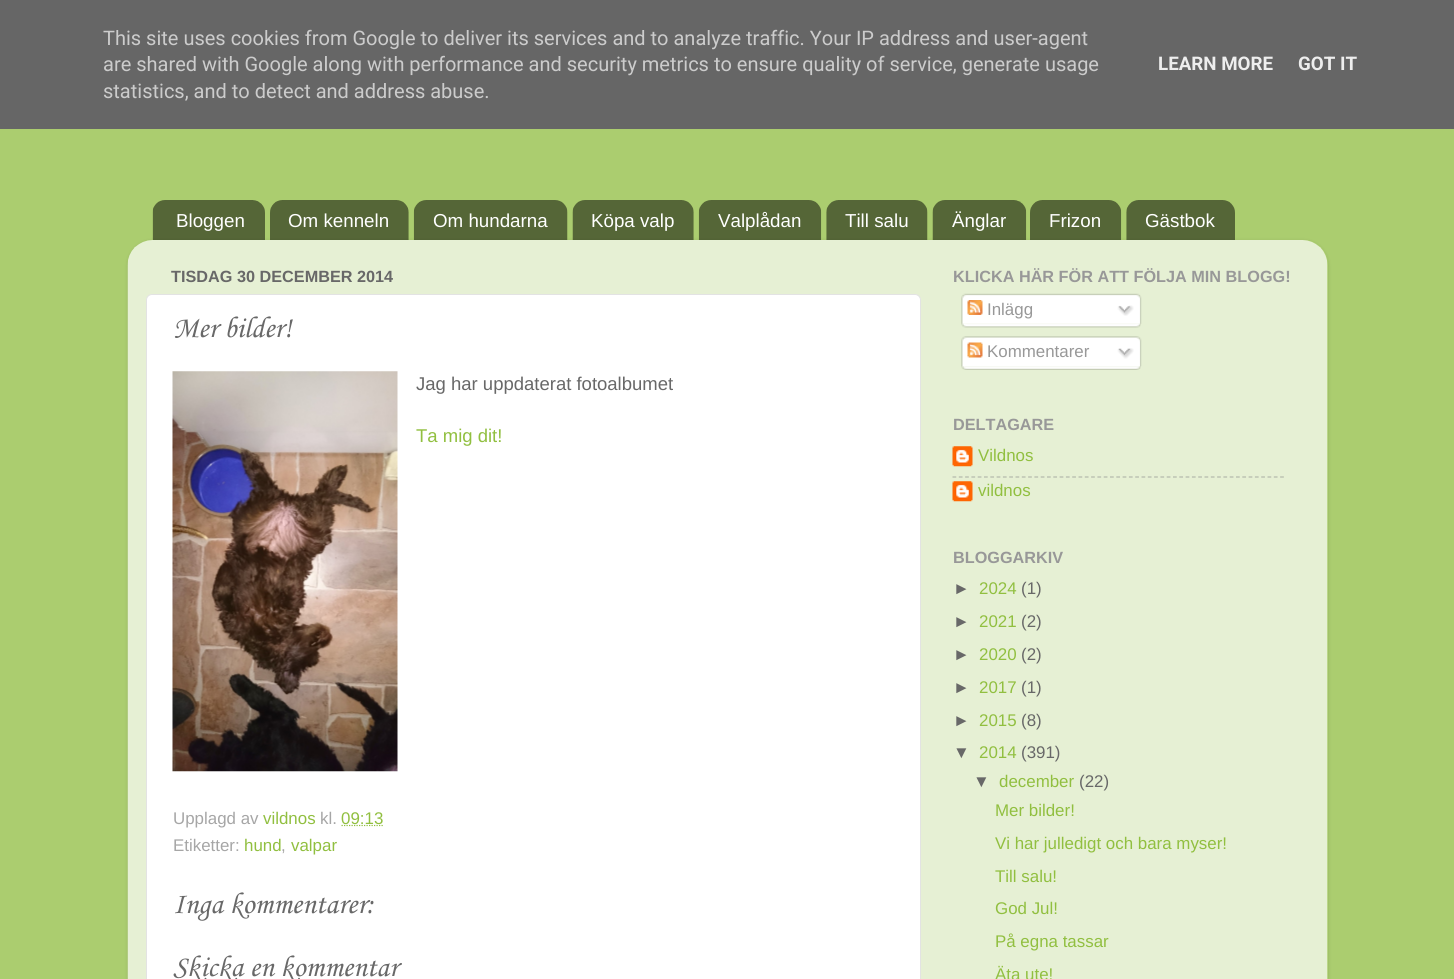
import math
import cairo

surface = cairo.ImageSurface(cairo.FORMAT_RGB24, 1454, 979)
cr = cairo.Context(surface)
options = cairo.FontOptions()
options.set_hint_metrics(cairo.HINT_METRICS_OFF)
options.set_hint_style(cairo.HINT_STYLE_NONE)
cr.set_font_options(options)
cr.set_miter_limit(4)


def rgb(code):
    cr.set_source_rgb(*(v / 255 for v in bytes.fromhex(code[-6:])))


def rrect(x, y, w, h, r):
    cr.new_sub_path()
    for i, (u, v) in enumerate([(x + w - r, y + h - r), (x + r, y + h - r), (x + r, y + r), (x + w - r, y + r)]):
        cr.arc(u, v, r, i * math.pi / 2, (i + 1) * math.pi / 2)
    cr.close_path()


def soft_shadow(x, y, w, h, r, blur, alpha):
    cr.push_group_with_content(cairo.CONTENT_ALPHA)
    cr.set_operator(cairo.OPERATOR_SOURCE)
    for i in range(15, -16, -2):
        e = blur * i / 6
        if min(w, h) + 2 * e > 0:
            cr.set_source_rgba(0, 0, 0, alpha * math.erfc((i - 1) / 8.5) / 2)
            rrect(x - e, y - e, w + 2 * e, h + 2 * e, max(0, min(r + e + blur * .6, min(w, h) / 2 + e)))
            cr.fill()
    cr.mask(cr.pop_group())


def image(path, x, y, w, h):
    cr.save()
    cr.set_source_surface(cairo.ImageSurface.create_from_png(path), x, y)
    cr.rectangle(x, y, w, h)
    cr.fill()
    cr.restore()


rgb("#abcd6f")
cr.paint()
rgb("#666666")
cr.rectangle(0, 0, 1454, 129)
cr.fill()
image("img/1.png", 152, 200, 113, 40)
image("img/2.png", 270, 200, 139, 40)
image("img/3.png", 413, 200, 155, 40)
image("img/4.png", 572, 200, 122, 40)
image("img/5.png", 698, 200, 124, 40)
image("img/6.png", 826, 200, 102, 40)
image("img/7.png", 932, 200, 95, 40)
image("img/8.png", 1030, 200, 92, 40)
image("img/9.png", 1126, 200, 109, 40)
cr.save()
cr.set_fill_rule(cairo.FILL_RULE_EVEN_ODD)
cr.new_path()
cr.move_to(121, 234)
cr.line_to(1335, 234)
cr.line_to(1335, 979)
cr.line_to(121, 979)
cr.close_path()
cr.move_to(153, 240)
cr.line_to(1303, 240)
cr.curve_to(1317, 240, 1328, 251, 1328, 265)
cr.line_to(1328, 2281)
cr.line_to(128, 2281)
cr.line_to(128, 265)
cr.curve_to(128, 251, 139, 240, 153, 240)
cr.close_path()
cr.clip()
rgb("#000000")
soft_shadow(128, 241, 1200, 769, 25, 2, 0.15)
cr.restore()
image("img/10.png", 127, 240, 1201, 739)
rgb("#ffffff")
rrect(146.5, 294.5, 774, 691, 5.5)
cr.fill_preserve()
rgb("#e3e3e3")
cr.set_line_width(1)
cr.stroke()
image("img/11.png", 172, 371, 226, 401)
cr.new_path()
cr.move_to(341.5, 825.5)
cr.line_to(383.5, 825.5)
rgb("#91bf40")
cr.set_line_width(1.2)
cr.set_dash([1.25, 1.25])
cr.stroke()
image("img/12.png", 961, 293, 181, 31)
image("img/13.png", 967, 300, 16, 15)
image("img/14.png", 1117, 305, 17, 11)
image("img/15.png", 961, 323, 180, 5)
image("img/16.png", 961, 336, 181, 31)
image("img/17.png", 967, 342, 16, 16)
image("img/18.png", 1117, 348, 17, 11)
image("img/19.png", 961, 366, 180, 4)
image("img/20.png", 952, 446, 21, 21)
cr.new_path()
cr.move_to(952.5, 477)
cr.line_to(1284, 477)
rgb("#b3b8aa")
cr.set_dash([3.75, 2.55])
cr.stroke()
image("img/20.png", 952, 481, 21, 21)
cr.select_font_face("Roboto")
cr.set_font_size(20)
rgb("#cccccc")
for x, y, s in [
    (103, 45, "This site uses cookies from Google to deliver its services and to analyze traffic. Your IP address and user-agent"),
    (103, 71, "are shared with Google along with performance and security metrics to ensure quality of service, generate usage"),
    (103, 98, "statistics, and to detect and address abuse."),
]:
    cr.move_to(x, y)
    cr.show_text(s)
cr.select_font_face("Roboto", cairo.FONT_SLANT_NORMAL, cairo.FONT_WEIGHT_BOLD)
cr.set_font_size(18.75)
rgb("#eeeeee")
cr.move_to(1158, 70)
cr.show_text("LEARN MORE")
cr.move_to(1298, 70)
cr.show_text("GOT IT")
cr.select_font_face("Liberation Sans")
rgb("#ffffff")
for x, y, s in [
    (176, 227, "Bloggen"),
    (288, 227, "Om kenneln"),
    (433, 227, "Om hundarna"),
    (591, 227, "Köpa valp"),
    (718, 227, "Valplådan"),
    (845, 227, "Till salu"),
    (952, 227, "Änglar"),
    (1049, 227, "Frizon"),
    (1145, 227, "Gästbok"),
]:
    cr.move_to(x, y)
    cr.show_text(s)
cr.select_font_face("Liberation Sans", cairo.FONT_SLANT_NORMAL, cairo.FONT_WEIGHT_BOLD)
cr.set_font_size(16.25)
rgb("#686868")
cr.move_to(171, 282)
cr.show_text("TISDAG 30 DECEMBER 2014")
cr.select_font_face("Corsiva")
cr.set_font_size(30)
cr.move_to(173, 337)
cr.show_text("Mer bilder!")
cr.select_font_face("Liberation Sans")
cr.set_font_size(18.5)
cr.move_to(416, 390)
cr.show_text("Jag har uppdaterat fotoalbumet")
rgb("#91bf40")
cr.move_to(416, 442)
cr.show_text("Ta mig dit!")
cr.set_font_size(16.9)
rgb("#a6a6a6")
cr.move_to(173, 824)
cr.show_text("Upplagd av")
rgb("#91bf40")
cr.move_to(263, 824)
cr.show_text("vildnos")
rgb("#a6a6a6")
cr.move_to(320, 824)
cr.show_text("kl.")
rgb("#91bf40")
cr.move_to(341, 824)
cr.show_text("09:13")
rgb("#a6a6a6")
cr.move_to(173, 851)
cr.show_text("Etiketter:")
rgb("#91bf40")
cr.move_to(244, 851)
cr.show_text("hund")
rgb("#a6a6a6")
cr.move_to(281, 851)
cr.show_text(",")
rgb("#91bf40")
cr.move_to(291, 851)
cr.show_text("valpar")
cr.select_font_face("Corsiva")
cr.set_font_size(30)
rgb("#686868")
cr.move_to(173, 913)
cr.show_text("Inga kommentarer:")
cr.move_to(173, 976)
cr.show_text("Skicka en kommentar")
cr.select_font_face("Liberation Sans", cairo.FONT_SLANT_NORMAL, cairo.FONT_WEIGHT_BOLD)
cr.set_font_size(16.25)
rgb("#989898")
cr.move_to(953, 282)
cr.show_text("KLICKA HÄR FÖR ATT FÖLJA MIN BLOGG!")
cr.select_font_face("Liberation Sans")
cr.set_font_size(16.9)
cr.move_to(987, 315)
cr.show_text("Inlägg")
cr.move_to(987, 357)
cr.show_text("Kommentarer")
cr.select_font_face("Liberation Sans", cairo.FONT_SLANT_NORMAL, cairo.FONT_WEIGHT_BOLD)
cr.set_font_size(16.25)
cr.move_to(953, 430)
cr.show_text("DELTAGARE")
cr.select_font_face("Liberation Sans")
cr.set_font_size(16.9)
rgb("#91bf40")
cr.move_to(978, 461)
cr.show_text("Vildnos")
cr.move_to(978, 496)
cr.show_text("vildnos")
cr.select_font_face("Liberation Sans", cairo.FONT_SLANT_NORMAL, cairo.FONT_WEIGHT_BOLD)
cr.set_font_size(16.25)
rgb("#989898")
cr.move_to(953, 563)
cr.show_text("BLOGGARKIV")
cr.select_font_face("Liberation Sans")
cr.set_font_size(16.9)
rgb("#686868")
cr.move_to(953, 594)
cr.show_text("►")
rgb("#91bf40")
cr.move_to(979, 594)
cr.show_text("2024")
rgb("#686868")
cr.move_to(1021, 594)
cr.show_text("(1)")
cr.move_to(953, 627)
cr.show_text("►")
rgb("#91bf40")
cr.move_to(979, 627)
cr.show_text("2021")
rgb("#686868")
cr.move_to(1021, 627)
cr.show_text("(2)")
cr.move_to(953, 660)
cr.show_text("►")
rgb("#91bf40")
cr.move_to(979, 660)
cr.show_text("2020")
rgb("#686868")
cr.move_to(1021, 660)
cr.show_text("(2)")
cr.move_to(953, 693)
cr.show_text("►")
rgb("#91bf40")
cr.move_to(979, 693)
cr.show_text("2017")
rgb("#686868")
cr.move_to(1021, 693)
cr.show_text("(1)")
cr.move_to(953, 726)
cr.show_text("►")
rgb("#91bf40")
cr.move_to(979, 726)
cr.show_text("2015")
rgb("#686868")
cr.move_to(1021, 726)
cr.show_text("(8)")
cr.move_to(953, 758)
cr.show_text("▼")
rgb("#91bf40")
cr.move_to(979, 758)
cr.show_text("2014")
rgb("#686868")
cr.move_to(1021, 758)
cr.show_text("(391)")
cr.move_to(973, 787)
cr.show_text("▼")
rgb("#91bf40")
cr.move_to(999, 787)
cr.show_text("december")
rgb("#686868")
cr.move_to(1079, 787)
cr.show_text("(22)")
rgb("#91bf40")
for x, y, s in [
    (995, 816, "Mer bilder!"),
    (995, 849, "Vi har julledigt och bara myser!"),
    (995, 882, "Till salu!"),
    (995, 914, "God Jul!"),
    (995, 947, "På egna tassar"),
    (995, 980, "Äta ute!"),
]:
    cr.move_to(x, y)
    cr.show_text(s)
surface.write_to_png("page.png")
